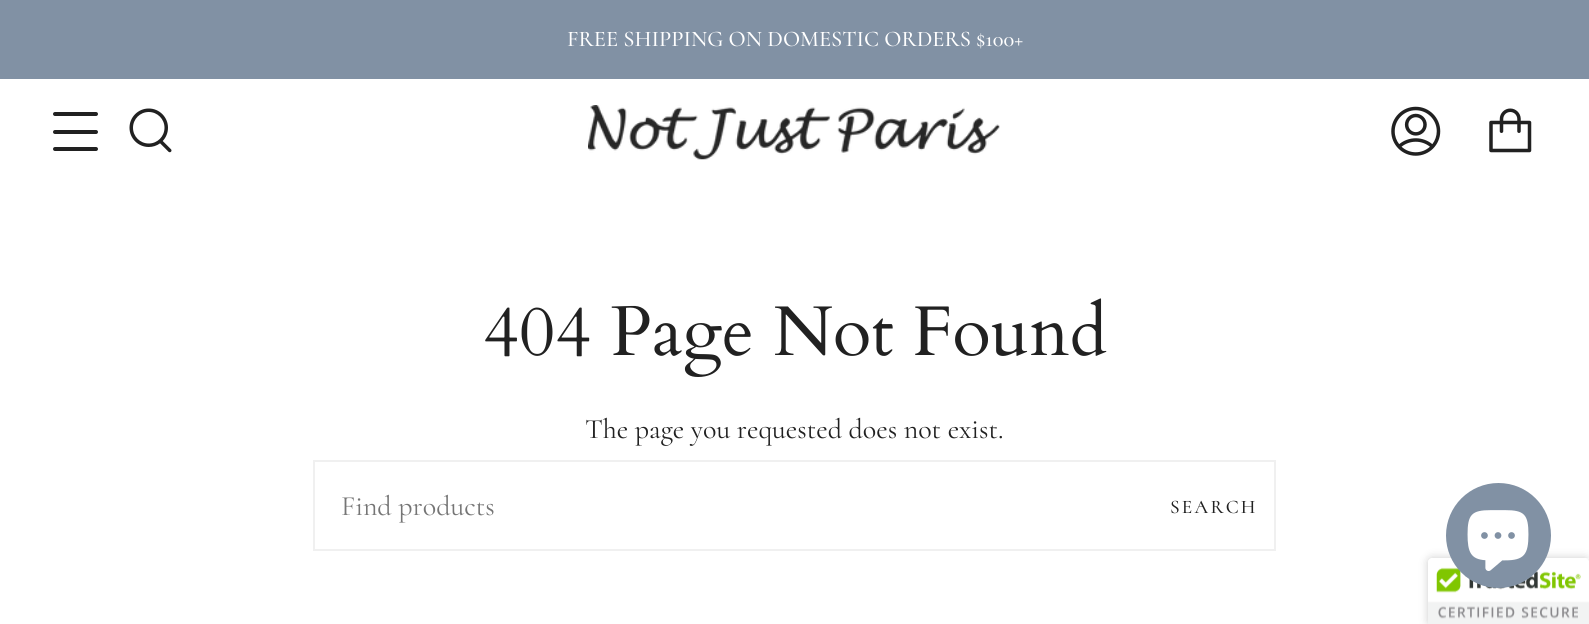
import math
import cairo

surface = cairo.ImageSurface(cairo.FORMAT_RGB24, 1589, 624)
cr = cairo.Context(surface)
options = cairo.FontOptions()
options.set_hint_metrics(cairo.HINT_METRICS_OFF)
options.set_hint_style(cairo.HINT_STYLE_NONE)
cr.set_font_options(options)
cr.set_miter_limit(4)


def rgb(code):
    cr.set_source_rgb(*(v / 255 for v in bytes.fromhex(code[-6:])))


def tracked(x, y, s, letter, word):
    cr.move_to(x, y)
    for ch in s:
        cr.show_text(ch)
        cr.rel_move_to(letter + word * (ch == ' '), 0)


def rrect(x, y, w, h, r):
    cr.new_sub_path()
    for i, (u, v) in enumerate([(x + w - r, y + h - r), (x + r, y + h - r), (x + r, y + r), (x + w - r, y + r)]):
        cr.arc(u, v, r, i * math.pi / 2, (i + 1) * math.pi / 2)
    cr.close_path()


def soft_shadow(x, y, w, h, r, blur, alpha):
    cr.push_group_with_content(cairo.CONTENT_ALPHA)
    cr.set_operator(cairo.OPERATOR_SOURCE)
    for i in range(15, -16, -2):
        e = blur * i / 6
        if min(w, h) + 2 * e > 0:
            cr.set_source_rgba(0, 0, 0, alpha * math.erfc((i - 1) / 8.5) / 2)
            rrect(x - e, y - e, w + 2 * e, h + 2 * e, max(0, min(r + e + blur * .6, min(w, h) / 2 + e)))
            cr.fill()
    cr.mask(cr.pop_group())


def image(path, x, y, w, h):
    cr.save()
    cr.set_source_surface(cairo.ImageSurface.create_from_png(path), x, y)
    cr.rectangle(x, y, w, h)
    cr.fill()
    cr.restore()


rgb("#ffffff")
cr.paint()
rgb("#8191a4")
cr.rectangle(0, 0, 1589, 79)
cr.fill()
rgb("#212121")
rrect(53, 112, 45, 4, 2)
cr.fill()
rrect(53, 130, 45, 4, 2)
cr.fill()
rrect(53, 147, 45, 4, 2)
cr.fill()
image("img/1.png", 129, 108, 43, 45)
image("img/2.png", 588, 105, 412, 55)
image("img/3.png", 1391, 106, 50, 50)
image("img/4.png", 1489, 108, 43, 45)
cr.rectangle(314, 461, 961, 89)
rgb("#f0f0f0")
cr.stroke()
rgb("#000000")
soft_shadow(1428, 558, 161, 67, 4, 4.5, 0.2)
rgb("#ffffff")
cr.new_path()
cr.move_to(1432, 558)
cr.line_to(1589, 558)
cr.line_to(1589, 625)
cr.line_to(1428, 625)
cr.line_to(1428, 562)
cr.curve_to(1428, 560, 1430, 558, 1432, 558)
cr.close_path()
cr.fill()
image("img/6.png", 1428, 558, 161, 66)
rgb("#8191a4")
cr.arc(1498.5, 535.5, 52.5, 0, 2 * math.pi)
cr.fill()
image("img/5.png", 1467, 510, 62, 61)
cr.select_font_face("Cormorant Medium")
cr.set_font_size(22.4)
rgb("#ffffff")
cr.move_to(567, 46)
cr.show_text("FREE SHIPPING ON DOMESTIC ORDERS $100+")
cr.select_font_face("Cardo")
cr.set_font_size(70.5)
rgb("#212121")
cr.move_to(483, 355)
cr.show_text("404 Page Not Found")
cr.select_font_face("Cormorant")
cr.set_font_size(28)
cr.move_to(585, 438)
cr.show_text("The page you requested does not exist.")
rgb("#757575")
cr.move_to(341, 515)
cr.show_text("Find products")
cr.select_font_face("Cormorant Medium")
cr.set_font_size(19.25)
rgb("#212121")
tracked(1170, 513, "SEARCH", 2.25, 0)
surface.write_to_png("page.png")
